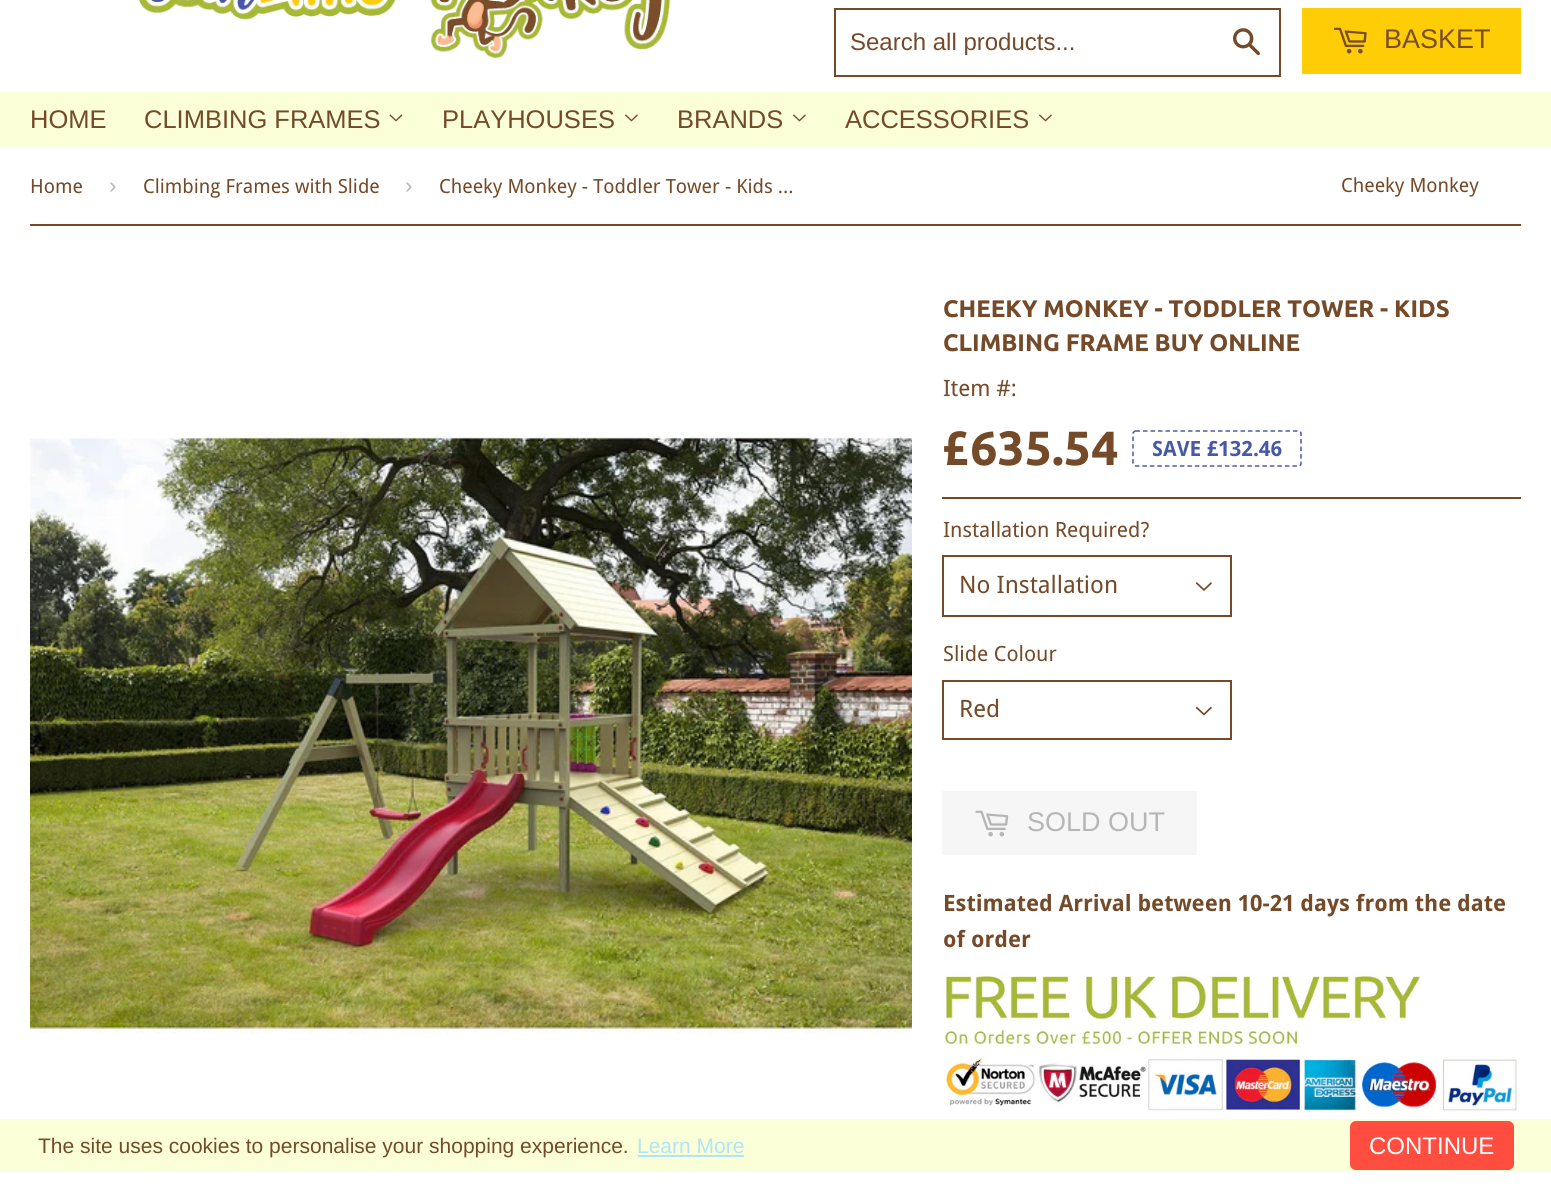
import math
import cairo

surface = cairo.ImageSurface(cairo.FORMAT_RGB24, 1551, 1192)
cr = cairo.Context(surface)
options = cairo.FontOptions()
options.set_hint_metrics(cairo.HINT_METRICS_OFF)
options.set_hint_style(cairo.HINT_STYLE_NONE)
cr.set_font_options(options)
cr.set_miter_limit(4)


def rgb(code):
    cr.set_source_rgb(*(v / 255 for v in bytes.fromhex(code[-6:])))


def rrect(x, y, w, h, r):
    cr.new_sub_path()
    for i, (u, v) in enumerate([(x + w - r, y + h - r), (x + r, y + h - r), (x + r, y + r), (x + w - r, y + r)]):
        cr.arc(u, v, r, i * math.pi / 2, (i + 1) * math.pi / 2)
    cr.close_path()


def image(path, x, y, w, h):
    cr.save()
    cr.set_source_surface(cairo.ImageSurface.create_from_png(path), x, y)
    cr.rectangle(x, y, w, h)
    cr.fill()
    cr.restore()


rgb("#ffffff")
cr.paint()
image("img/1.png", 139, 0, 532, 59)
cr.rectangle(835, 9, 445, 67)
rgb("#744a29")
cr.stroke()
image("img/2.png", 1233, 28, 27, 28)
rgb("#ffcd05")
cr.rectangle(1302, 8, 219, 66)
cr.fill()
image("img/3.png", 1333, 27, 34, 27)
rgb("#faffd7")
cr.rectangle(0, 92, 1551, 55)
cr.fill()
image("img/4.png", 389, 114, 14, 8)
image("img/5.png", 625, 114, 13, 8)
image("img/5.png", 793, 114, 13, 8)
image("img/5.png", 1039, 114, 13, 8)
rgb("#744a29")
cr.rectangle(30, 224, 1491, 2)
cr.fill()
image("img/6.png", 30, 432, 882, 602)
cr.new_path()
cr.move_to(1135.5, 431)
cr.line_to(1299, 431)
cr.curve_to(1300, 431, 1301, 432.5, 1301, 433.5)
cr.line_to(1301, 463.5)
cr.curve_to(1301, 464.5, 1300, 466, 1299, 466)
cr.line_to(1135.5, 466)
cr.curve_to(1134.5, 466, 1133, 464.5, 1133, 463.5)
cr.line_to(1133, 433.5)
cr.curve_to(1133, 432.5, 1134.5, 431, 1135.5, 431)
cr.close_path()
rgb("#4758a7")
cr.set_line_width(1.5)
cr.set_dash([4.5, 3])
cr.stroke()
rgb("#744a29")
cr.rectangle(942, 497, 579, 2)
cr.fill()
image("img/7.png", 1195, 582, 17, 9)
cr.rectangle(943, 556, 288, 60)
cr.set_line_width(2)
cr.set_dash([])
cr.stroke()
image("img/8.png", 1195, 706, 17, 10)
cr.rectangle(943, 681, 288, 58)
cr.stroke()
rgb("#f6f6f6")
cr.rectangle(942, 791, 255, 64)
cr.fill()
image("img/9.png", 975, 810, 34, 27)
image("img/10.png", 942, 972, 575, 141)
rgb("#faffd7")
cr.rectangle(0, 1119, 1551, 53)
cr.fill()
rgb("#b0e5f7")
cr.rectangle(638, 1155, 106, 2)
cr.fill()
rgb("#ff4d40")
rrect(1350, 1121, 164, 49, 6)
cr.fill()
cr.select_font_face("Liberation Sans")
cr.set_font_size(24)
rgb("#744a29")
cr.move_to(850, 50)
cr.show_text("Search all products...")
cr.set_font_size(27)
rgb("#7b4e2a")
cr.move_to(1384, 48)
cr.show_text("BASKET")
cr.set_font_size(25.5)
rgb("#744a29")
for x, y, s in [
    (30, 128, "HOME"),
    (144, 128, "CLIMBING FRAMES"),
    (442, 128, "PLAYHOUSES"),
    (677, 128, "BRANDS"),
    (845, 128, "ACCESSORIES"),
]:
    cr.move_to(x, y)
    cr.show_text(s)
cr.select_font_face("Droid Sans")
cr.set_font_size(19.5)
cr.move_to(30, 193)
cr.show_text("Home")
cr.select_font_face("Liberation Sans")
cr.set_font_size(22.5)
rgb("#b6b6b6")
cr.move_to(109, 193)
cr.show_text("›")
cr.select_font_face("Droid Sans")
cr.set_font_size(19.5)
rgb("#744a29")
cr.move_to(143, 193)
cr.show_text("Climbing Frames with Slide")
cr.select_font_face("Liberation Sans")
cr.set_font_size(22.5)
rgb("#b6b6b6")
cr.move_to(405, 193)
cr.show_text("›")
cr.select_font_face("Droid Sans")
cr.set_font_size(19.5)
rgb("#744a29")
cr.move_to(439, 193)
cr.show_text("Cheeky Monkey - Toddler Tower - Kids ...")
cr.move_to(1341, 192)
cr.show_text("Cheeky Monkey")
cr.select_font_face("Ubuntu", cairo.FONT_SLANT_NORMAL, cairo.FONT_WEIGHT_BOLD)
cr.set_font_size(24)
cr.move_to(943, 317)
cr.show_text("CHEEKY MONKEY - TODDLER TOWER - KIDS")
cr.move_to(943, 351)
cr.show_text("CLIMBING FRAME BUY ONLINE")
cr.select_font_face("Droid Sans")
cr.set_font_size(22.5)
cr.move_to(943, 396)
cr.show_text("Item #:")
cr.select_font_face("Ubuntu", cairo.FONT_SLANT_NORMAL, cairo.FONT_WEIGHT_BOLD)
cr.set_font_size(48)
cr.move_to(943, 465)
cr.show_text("£635.54")
cr.select_font_face("Droid Sans", cairo.FONT_SLANT_NORMAL, cairo.FONT_WEIGHT_BOLD)
cr.set_font_size(21)
rgb("#4758a7")
cr.move_to(1152, 456)
cr.show_text("SAVE £132.46")
cr.select_font_face("Droid Sans")
rgb("#744a29")
cr.move_to(943, 537)
cr.show_text("Installation Required?")
cr.set_font_size(24)
cr.move_to(959, 593)
cr.show_text("No Installation")
cr.set_font_size(21)
cr.move_to(943, 661)
cr.show_text("Slide Colour")
cr.set_font_size(24)
cr.move_to(959, 717)
cr.show_text("Red")
cr.select_font_face("Liberation Sans")
cr.set_font_size(27)
rgb("#b6b6b6")
cr.move_to(1027, 831)
cr.show_text("SOLD OUT")
cr.select_font_face("Droid Sans", cairo.FONT_SLANT_NORMAL, cairo.FONT_WEIGHT_BOLD)
cr.set_font_size(22.5)
rgb("#744a29")
cr.move_to(943, 911)
cr.show_text("Estimated Arrival between 10-21 days from the date")
cr.move_to(943, 947)
cr.show_text("of order")
cr.select_font_face("Liberation Sans")
cr.set_font_size(21)
cr.move_to(38, 1153)
cr.show_text("The site uses cookies to personalise your shopping experience.")
rgb("#b0e5f7")
cr.move_to(637, 1153)
cr.show_text("Learn More")
cr.set_font_size(24)
rgb("#ffffff")
cr.move_to(1369, 1154)
cr.show_text("CONTINUE")
surface.write_to_png("page.png")
